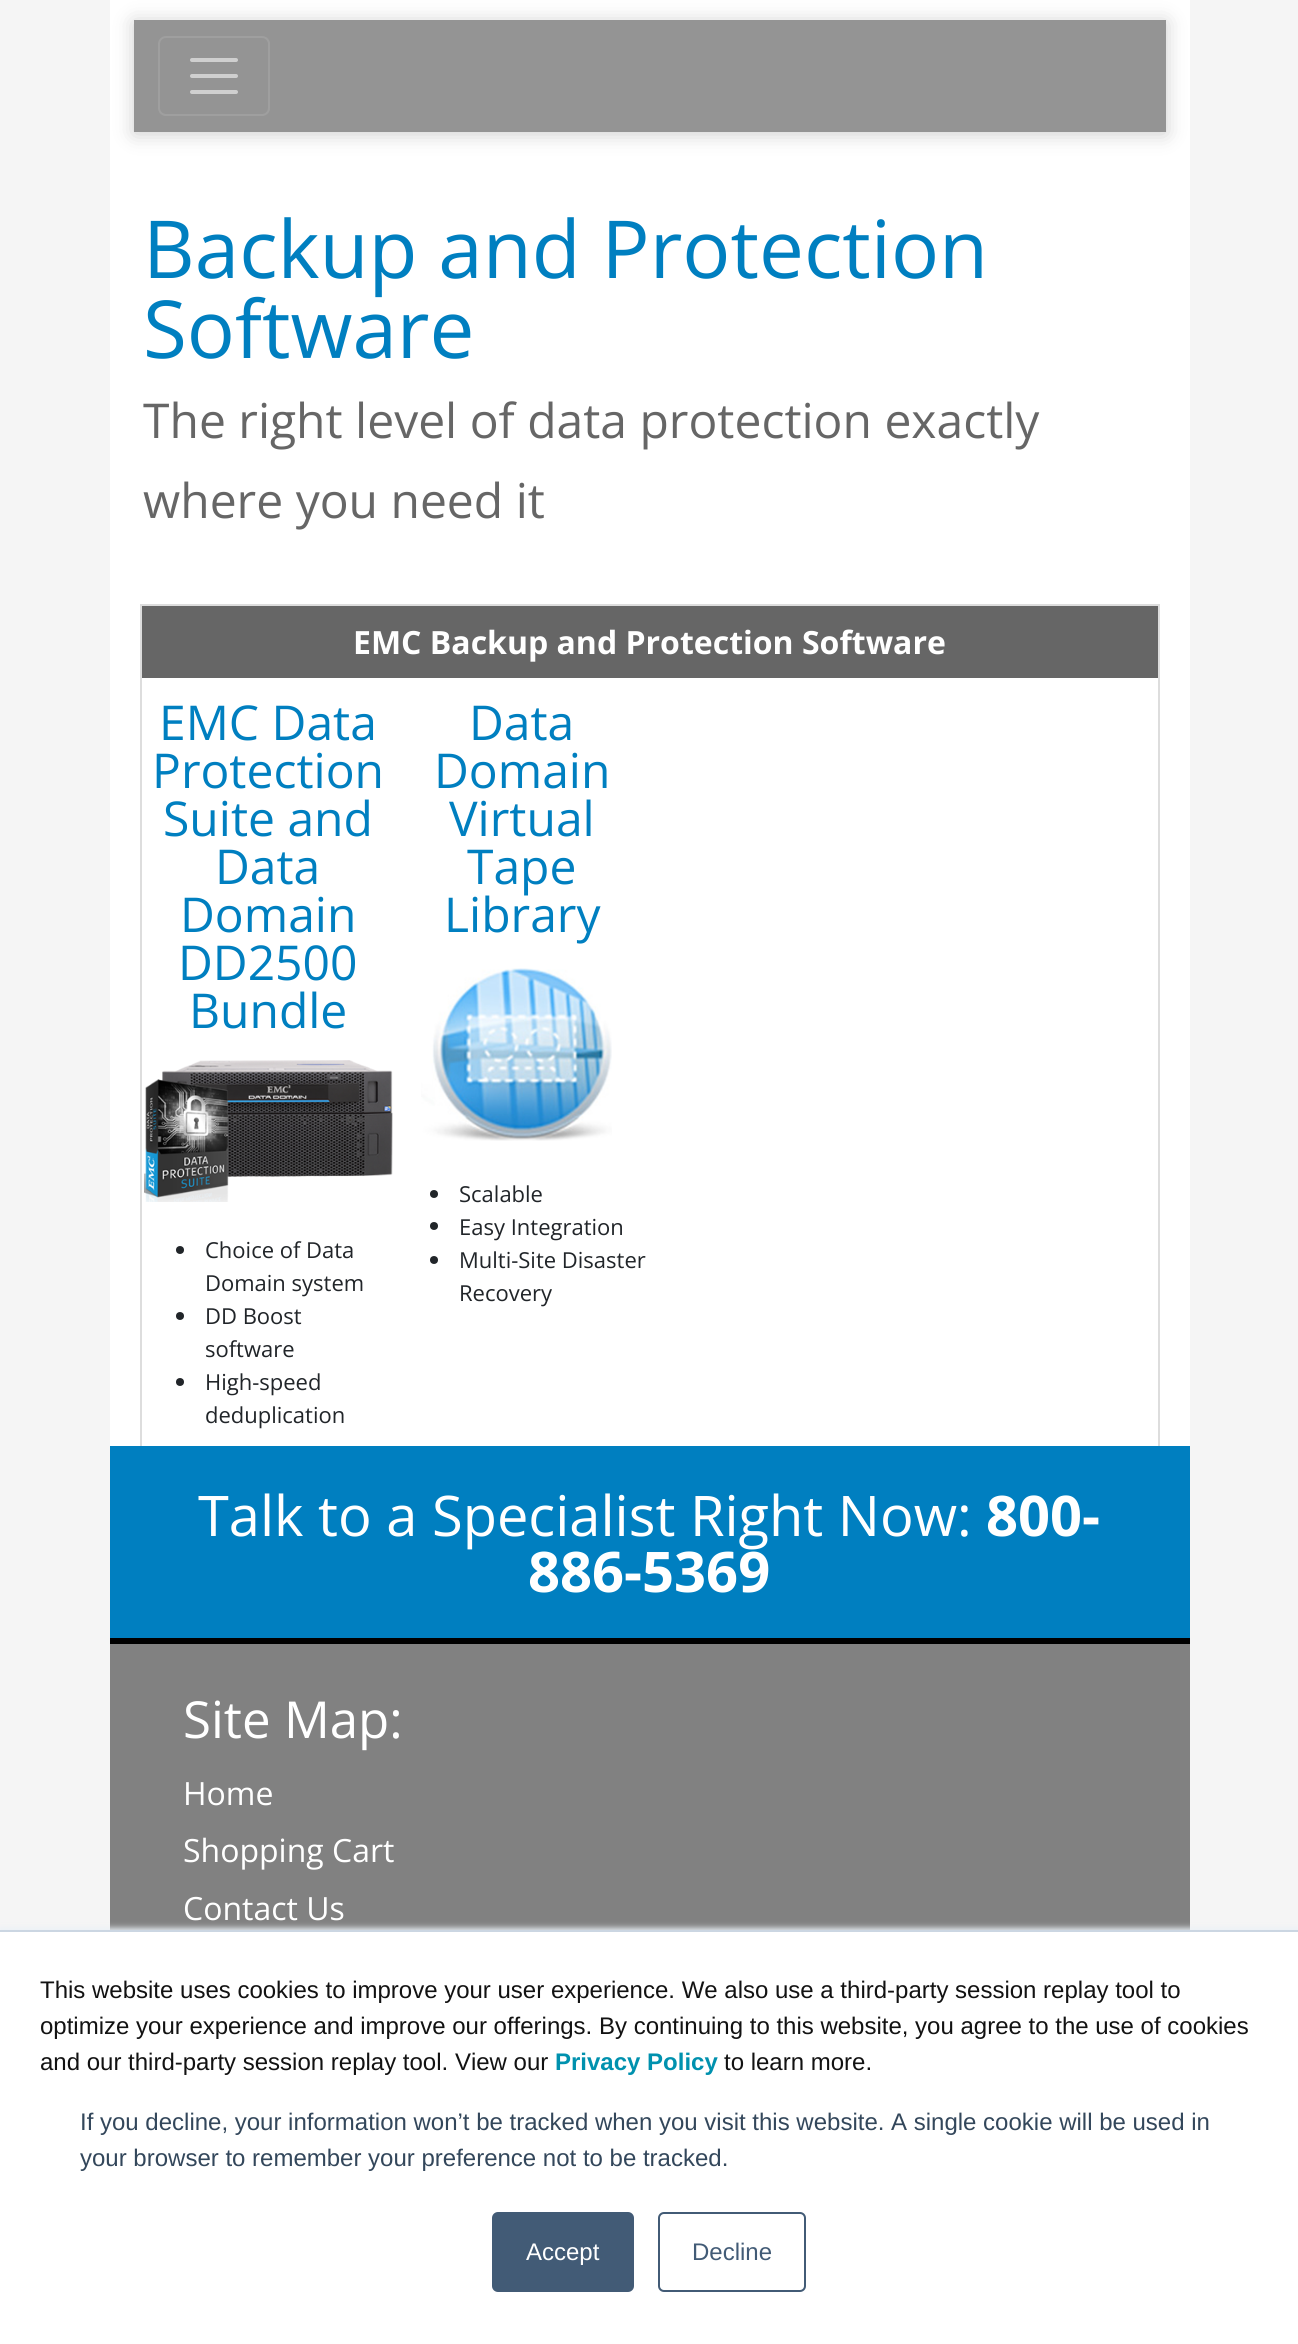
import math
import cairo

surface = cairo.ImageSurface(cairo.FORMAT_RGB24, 1298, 2344)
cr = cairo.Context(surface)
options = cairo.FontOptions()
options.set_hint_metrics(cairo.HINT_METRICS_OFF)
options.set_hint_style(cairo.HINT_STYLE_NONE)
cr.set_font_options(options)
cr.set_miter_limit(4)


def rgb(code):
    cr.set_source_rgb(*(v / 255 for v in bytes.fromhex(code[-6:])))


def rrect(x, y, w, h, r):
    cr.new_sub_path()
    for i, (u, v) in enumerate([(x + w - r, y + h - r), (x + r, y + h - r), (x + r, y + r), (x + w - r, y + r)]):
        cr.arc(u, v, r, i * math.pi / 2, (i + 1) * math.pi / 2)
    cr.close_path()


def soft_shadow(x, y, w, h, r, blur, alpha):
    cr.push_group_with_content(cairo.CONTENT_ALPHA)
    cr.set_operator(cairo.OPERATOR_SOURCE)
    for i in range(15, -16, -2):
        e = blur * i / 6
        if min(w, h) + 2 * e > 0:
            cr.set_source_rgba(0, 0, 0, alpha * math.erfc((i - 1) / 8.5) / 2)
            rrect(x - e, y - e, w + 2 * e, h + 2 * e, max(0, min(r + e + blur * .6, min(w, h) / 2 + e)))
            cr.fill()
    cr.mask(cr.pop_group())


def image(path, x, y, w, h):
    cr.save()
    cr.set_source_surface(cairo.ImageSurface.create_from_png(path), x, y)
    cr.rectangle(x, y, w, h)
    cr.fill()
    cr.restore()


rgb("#f5f5f5")
cr.paint()
rgb("#ffffff")
cr.rectangle(110, 0, 1080, 1446)
cr.fill()
rgb("#000000")
soft_shadow(134, 22, 1032, 112, 0, 10, 0.2)
rgb("#949494")
cr.rectangle(134, 20, 1032, 112)
cr.fill()
rrect(159, 37, 110, 78, 7)
rgb("#9f9f9f")
cr.stroke()
cr.new_path()
cr.move_to(192, 60)
cr.line_to(236, 60)
cr.move_to(192, 76)
cr.line_to(236, 76)
cr.move_to(192, 92)
cr.line_to(236, 92)
rgb("#cfcfcf")
cr.set_line_width(4)
cr.set_line_cap(cairo.LINE_CAP_ROUND)
cr.stroke()
cr.rectangle(141, 605, 1018, 860)
rgb("#dddddd")
cr.set_line_width(2)
cr.set_line_cap(cairo.LINE_CAP_BUTT)
cr.stroke()
rgb("#666666")
cr.rectangle(142, 606, 1016, 72)
cr.fill()
image("img/1.png", 144, 1060, 249, 142)
rgb("#212529")
cr.arc(180, 1250, 4, 0, 2 * math.pi)
cr.fill()
cr.arc(180, 1316, 4, 0, 2 * math.pi)
cr.fill()
cr.arc(180, 1382, 4, 0, 2 * math.pi)
cr.fill()
image("img/2.png", 421, 968, 191, 173)
cr.arc(434, 1194, 4, 0, 2 * math.pi)
cr.fill()
cr.arc(434, 1226, 4, 0, 2 * math.pi)
cr.fill()
cr.arc(434, 1260, 4, 0, 2 * math.pi)
cr.fill()
for x, y, w, h, color in [
    (110, 1446, 1080, 192, "#007fc0"),
    (110, 1638, 1080, 6, "#000000"),
    (110, 1644, 1080, 286, "#818181"),
]:
    rgb(color)
    cr.rectangle(x, y, w, h)
    cr.fill()
rgb("#eaf0f6")
soft_shadow(0, 1928, 1298, 414, 0, 3, 1)
rgb("#ffffff")
cr.rectangle(0, 1932, 1298, 412)
cr.fill()
rgb("#cbd6e2")
cr.rectangle(0, 1930, 1298, 2)
cr.fill()
rgb("#425b76")
rrect(493, 2213, 140, 78, 5)
cr.fill_preserve()
cr.stroke()
rrect(659, 2213, 146, 78, 5)
cr.stroke()
cr.select_font_face("Open Sans")
cr.set_font_size(80)
rgb("#007fc0")
cr.move_to(143, 278)
cr.show_text("Backup and Protection")
cr.move_to(143, 358)
cr.show_text("Software")
cr.set_font_size(48)
rgb("#666666")
cr.move_to(143, 438)
cr.show_text("The right level of data protection exactly")
cr.move_to(143, 518)
cr.show_text("where you need it")
cr.select_font_face("Open Sans", cairo.FONT_SLANT_NORMAL, cairo.FONT_WEIGHT_BOLD)
cr.set_font_size(32)
rgb("#ffffff")
cr.move_to(353, 654)
cr.show_text("EMC Backup and Protection Software")
cr.select_font_face("Open Sans")
cr.set_font_size(48)
rgb("#007fc0")
for x, y, s in [
    (159, 740, "EMC Data"),
    (152, 788, "Protection"),
    (163, 836, "Suite and"),
    (215, 884, "Data"),
    (180, 932, "Domain"),
    (178, 980, "DD2500"),
    (189, 1028, "Bundle"),
]:
    cr.move_to(x, y)
    cr.show_text(s)
cr.set_font_size(22)
rgb("#212529")
for x, y, s in [
    (205, 1258, "Choice of Data"),
    (205, 1291, "Domain system"),
    (205, 1324, "DD Boost"),
    (205, 1357, "software"),
    (205, 1390, "High-speed"),
    (205, 1423, "deduplication"),
]:
    cr.move_to(x, y)
    cr.show_text(s)
cr.set_font_size(48)
rgb("#007fc0")
for x, y, s in [
    (469, 740, "Data"),
    (434, 788, "Domain"),
    (449, 836, "Virtual"),
    (467, 884, "Tape"),
    (444, 932, "Library"),
]:
    cr.move_to(x, y)
    cr.show_text(s)
cr.set_font_size(22)
rgb("#212529")
for x, y, s in [
    (459, 1202, "Scalable"),
    (459, 1235, "Easy Integration"),
    (459, 1268, "Multi-Site Disaster"),
    (459, 1301, "Recovery"),
]:
    cr.move_to(x, y)
    cr.show_text(s)
cr.set_font_size(56)
rgb("#ffffff")
cr.move_to(198, 1536)
cr.show_text("Talk to a Specialist Right Now:")
cr.select_font_face("Open Sans", cairo.FONT_SLANT_NORMAL, cairo.FONT_WEIGHT_BOLD)
cr.move_to(986, 1536)
cr.show_text("800-")
cr.move_to(528, 1592)
cr.show_text("886-5369")
cr.select_font_face("Open Sans")
cr.set_font_size(51)
cr.move_to(183, 1738)
cr.show_text("Site Map:")
cr.set_font_size(32)
for x, y, s in [
    (183, 1805, "Home"),
    (183, 1862, "Shopping Cart"),
    (183, 1920, "Contact Us"),
]:
    cr.move_to(x, y)
    cr.show_text(s)
cr.select_font_face("Liberation Sans")
cr.set_font_size(24)
rgb("#121212")
for x, y, s in [
    (40, 1998, "This website uses cookies to improve your user experience. We also use a third-party session replay tool to"),
    (40, 2034, "optimize your experience and improve our offerings. By continuing to this website, you agree to the use of cookies"),
    (40, 2070, "and our third-party session replay tool. View our"),
]:
    cr.move_to(x, y)
    cr.show_text(s)
cr.select_font_face("Liberation Sans", cairo.FONT_SLANT_NORMAL, cairo.FONT_WEIGHT_BOLD)
rgb("#0091ae")
cr.move_to(555, 2070)
cr.show_text("Privacy Policy")
cr.select_font_face("Liberation Sans")
rgb("#121212")
cr.move_to(724, 2070)
cr.show_text("to learn more.")
rgb("#33475b")
cr.move_to(80, 2130)
cr.show_text("If you decline, your information won’t be tracked when you visit this website. A single cookie will be used in")
cr.move_to(80, 2166)
cr.show_text("your browser to remember your preference not to be tracked.")
rgb("#ffffff")
cr.move_to(526, 2260)
cr.show_text("Accept")
rgb("#425b76")
cr.move_to(692, 2260)
cr.show_text("Decline")
surface.write_to_png("page.png")
